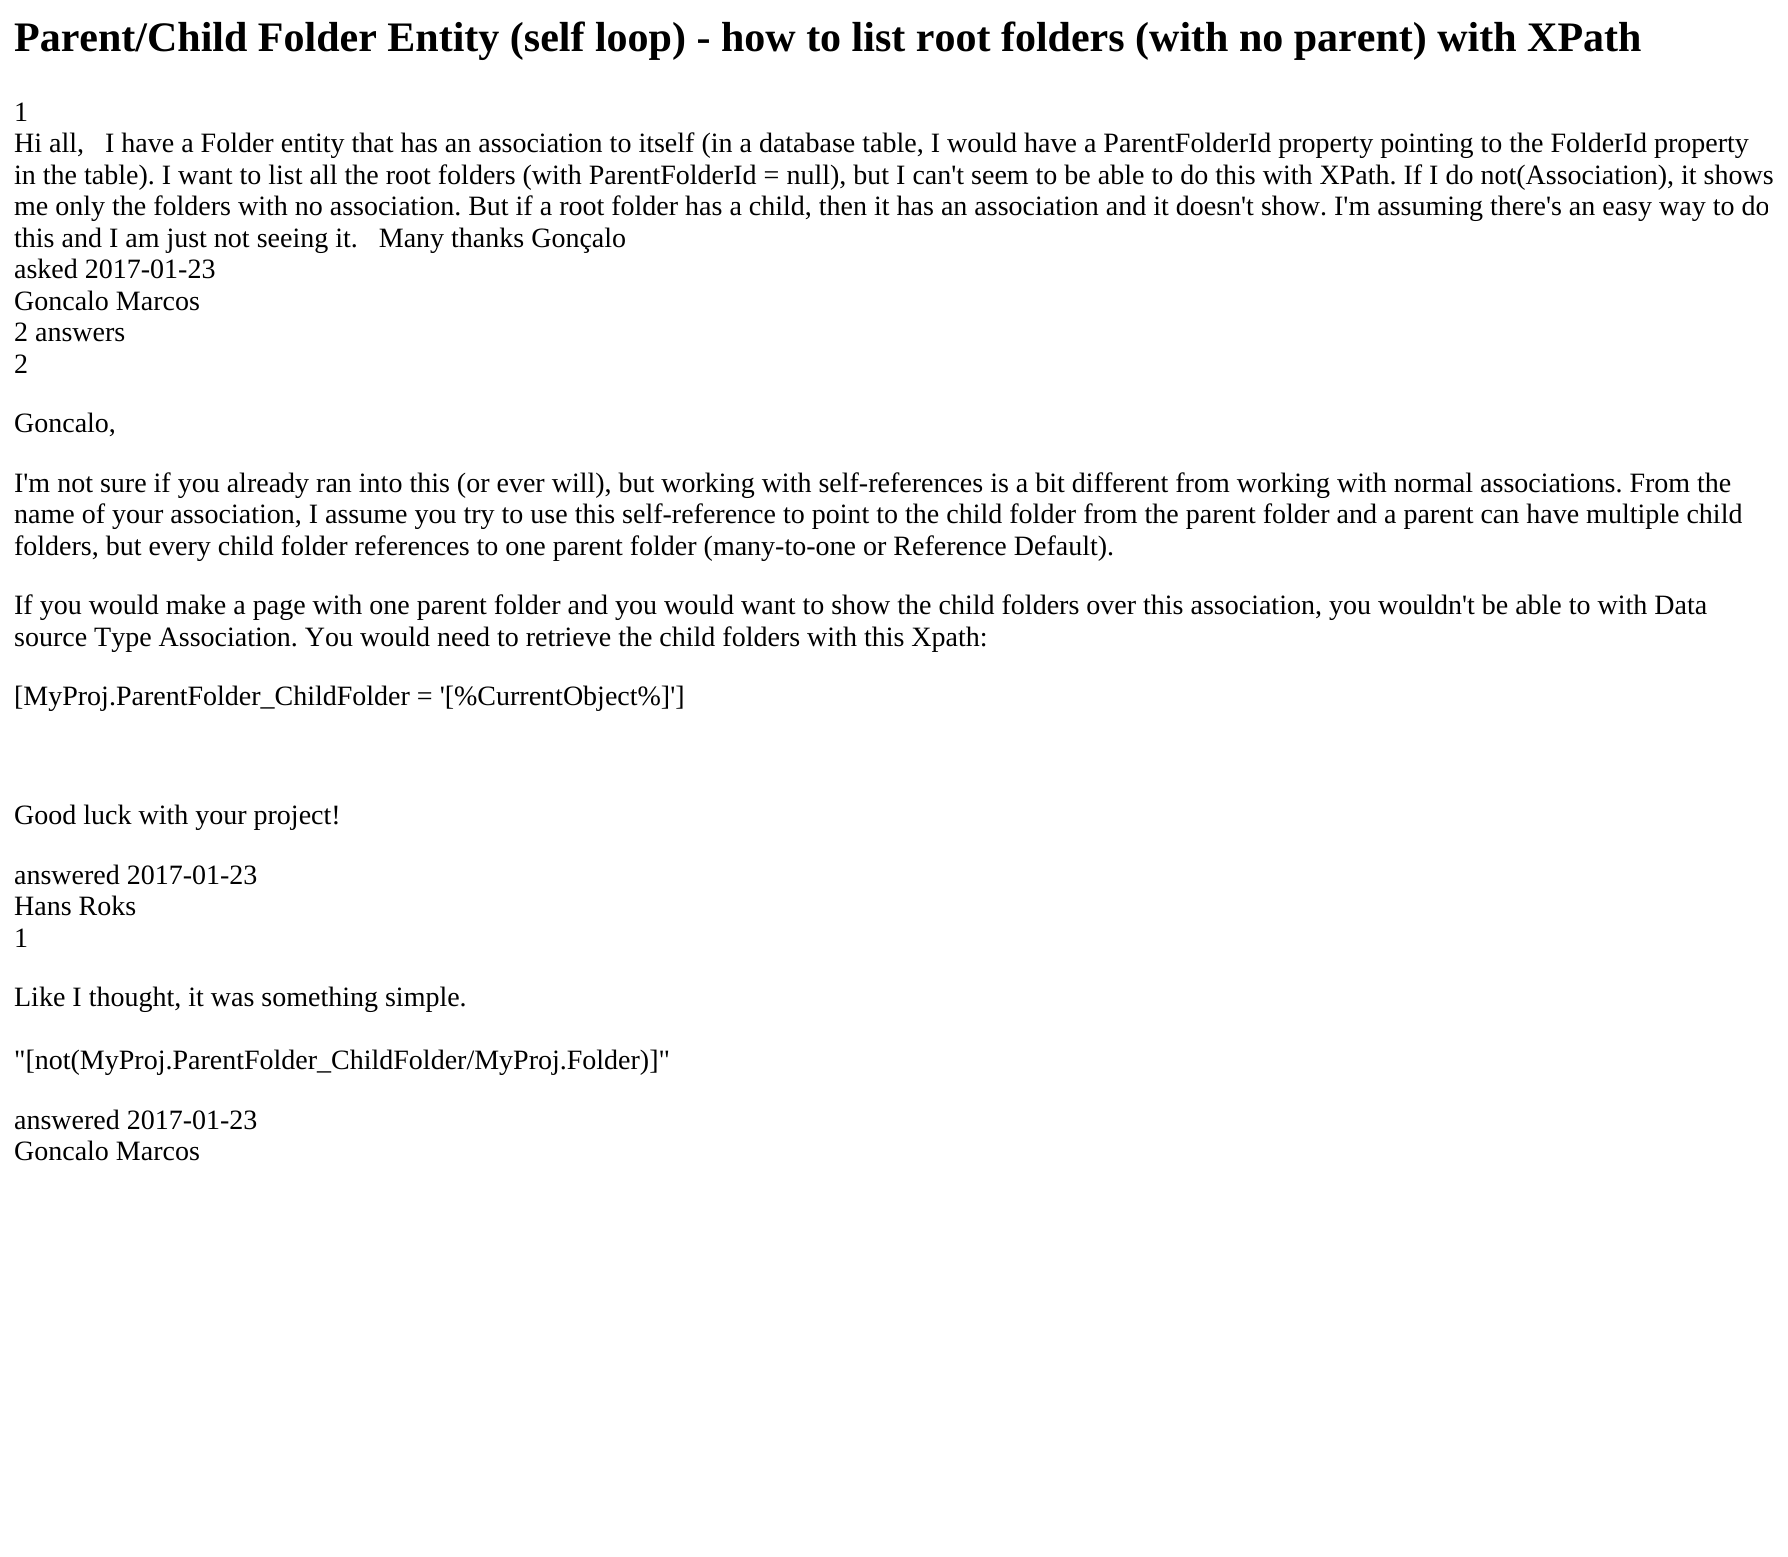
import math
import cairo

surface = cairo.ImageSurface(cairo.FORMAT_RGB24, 1788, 1557)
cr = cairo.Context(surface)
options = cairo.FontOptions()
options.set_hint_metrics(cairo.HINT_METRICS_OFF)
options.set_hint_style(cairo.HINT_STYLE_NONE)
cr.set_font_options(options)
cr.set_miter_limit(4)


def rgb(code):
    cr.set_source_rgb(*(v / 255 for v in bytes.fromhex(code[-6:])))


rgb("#ffffff")
cr.paint()
cr.select_font_face("Liberation Serif", cairo.FONT_SLANT_NORMAL, cairo.FONT_WEIGHT_BOLD)
cr.set_font_size(42)
rgb("#000000")
cr.move_to(14, 51)
cr.show_text("Parent/Child Folder Entity (self loop) - how to list root folders (with no parent) with XPath")
cr.select_font_face("Liberation Serif")
cr.set_font_size(28)
for x, y, s in [
    (14, 121, "1"),
    (14, 152, "Hi all,   I have a Folder entity that has an association to itself (in a database table, I would have a ParentFolderId property pointing to the FolderId property"),
    (14, 184, "in the table). I want to list all the root folders (with ParentFolderId = null), but I can't seem to be able to do this with XPath. If I do not(Association), it shows"),
    (14, 215, "me only the folders with no association. But if a root folder has a child, then it has an association and it doesn't show. I'm assuming there's an easy way to do"),
    (14, 247, "this and I am just not seeing it.   Many thanks Gonçalo"),
    (14, 278, "asked 2017-01-23"),
    (14, 310, "Goncalo Marcos"),
    (14, 341, "2 answers"),
    (14, 373, "2"),
    (14, 432, "Goncalo,"),
    (14, 492, "I'm not sure if you already ran into this (or ever will), but working with self-references is a bit different from working with normal associations. From the"),
    (14, 523, "name of your association, I assume you try to use this self-reference to point to the child folder from the parent folder and a parent can have multiple child"),
    (14, 555, "folders, but every child folder references to one parent folder (many-to-one or Reference Default)."),
    (14, 614, "If you would make a page with one parent folder and you would want to show the child folders over this association, you wouldn't be able to with Data"),
    (14, 646, "source Type Association. You would need to retrieve the child folders with this Xpath:"),
    (14, 705, "[MyProj.ParentFolder_ChildFolder = '[%CurrentObject%]']"),
    (14, 824, "Good luck with your project!"),
    (14, 884, "answered 2017-01-23"),
    (14, 915, "Hans Roks"),
    (14, 947, "1"),
    (14, 1006, "Like I thought, it was something simple."),
    (14, 1069, "\"[not(MyProj.ParentFolder_ChildFolder/MyProj.Folder)]\""),
    (14, 1129, "answered 2017-01-23"),
    (14, 1160, "Goncalo Marcos"),
]:
    cr.move_to(x, y)
    cr.show_text(s)
surface.write_to_png("page.png")
